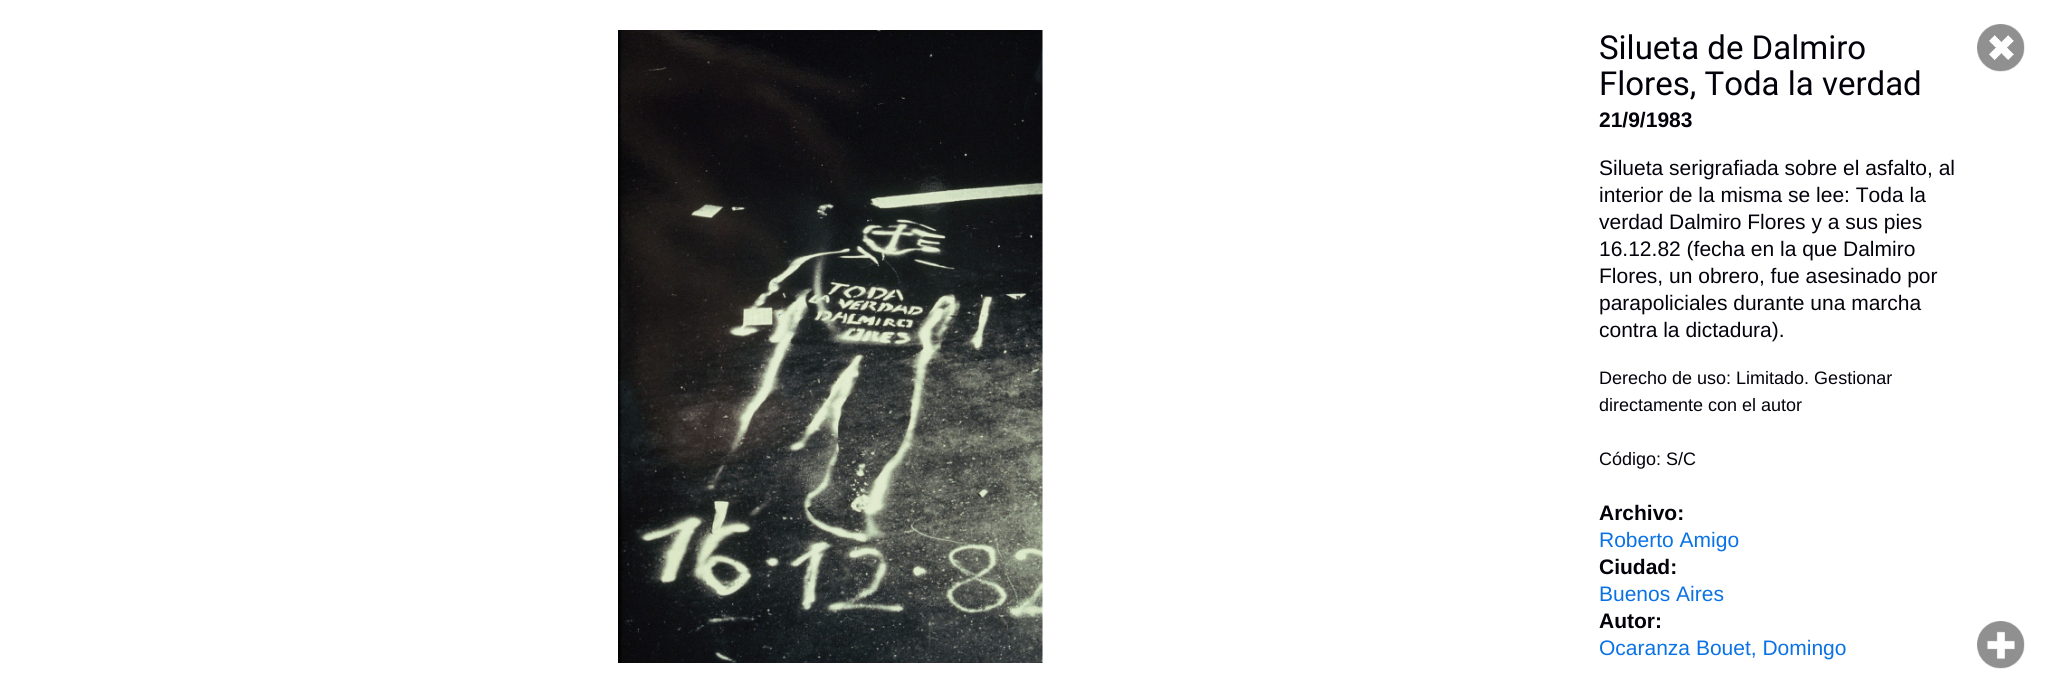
import math
import cairo

surface = cairo.ImageSurface(cairo.FORMAT_RGB24, 2049, 692)
cr = cairo.Context(surface)
options = cairo.FontOptions()
options.set_hint_metrics(cairo.HINT_METRICS_OFF)
options.set_hint_style(cairo.HINT_STYLE_NONE)
cr.set_font_options(options)
cr.set_miter_limit(4)


def rgb(code):
    cr.set_source_rgb(*(v / 255 for v in bytes.fromhex(code[-6:])))


def image(path, x, y, w, h):
    cr.save()
    cr.set_source_surface(cairo.ImageSurface.create_from_png(path), x, y)
    cr.rectangle(x, y, w, h)
    cr.fill()
    cr.restore()


rgb("#ffffff")
cr.paint()
image("img/1.png", 618, 30, 425, 633)
image("img/2.png", 1977, 24, 48, 48)
image("img/3.png", 1977, 621, 48, 48)
cr.select_font_face("Roboto")
cr.set_font_size(33)
rgb("#03020a")
cr.move_to(1599, 59)
cr.show_text("Silueta de Dalmiro")
cr.move_to(1599, 95)
cr.show_text("Flores, Toda la verdad")
cr.select_font_face("Liberation Sans", cairo.FONT_SLANT_NORMAL, cairo.FONT_WEIGHT_BOLD)
cr.set_font_size(21)
cr.move_to(1599, 127)
cr.show_text("21/9/1983")
cr.select_font_face("Liberation Sans")
for x, y, s in [
    (1599, 175, "Silueta serigrafiada sobre el asfalto, al"),
    (1599, 202, "interior de la misma se lee: Toda la"),
    (1599, 229, "verdad Dalmiro Flores y a sus pies"),
    (1599, 256, "16.12.82 (fecha en la que Dalmiro"),
    (1599, 283, "Flores, un obrero, fue asesinado por"),
    (1599, 310, "parapoliciales durante una marcha"),
    (1599, 337, "contra la dictadura)."),
]:
    cr.move_to(x, y)
    cr.show_text(s)
cr.set_font_size(18)
for x, y, s in [
    (1599, 384, "Derecho de uso: Limitado. Gestionar"),
    (1599, 411, "directamente con el autor"),
    (1599, 465, "Código: S/C"),
]:
    cr.move_to(x, y)
    cr.show_text(s)
cr.select_font_face("Liberation Sans", cairo.FONT_SLANT_NORMAL, cairo.FONT_WEIGHT_BOLD)
cr.set_font_size(21)
cr.move_to(1599, 520)
cr.show_text("Archivo:")
cr.select_font_face("Liberation Sans")
rgb("#0a72e4")
cr.move_to(1599, 547)
cr.show_text("Roberto Amigo")
cr.select_font_face("Liberation Sans", cairo.FONT_SLANT_NORMAL, cairo.FONT_WEIGHT_BOLD)
rgb("#03020a")
cr.move_to(1599, 574)
cr.show_text("Ciudad:")
cr.select_font_face("Liberation Sans")
rgb("#0a72e4")
cr.move_to(1599, 601)
cr.show_text("Buenos Aires")
cr.select_font_face("Liberation Sans", cairo.FONT_SLANT_NORMAL, cairo.FONT_WEIGHT_BOLD)
rgb("#03020a")
cr.move_to(1599, 628)
cr.show_text("Autor:")
cr.select_font_face("Liberation Sans")
rgb("#0a72e4")
cr.move_to(1599, 655)
cr.show_text("Ocaranza Bouet, Domingo")
surface.write_to_png("page.png")
